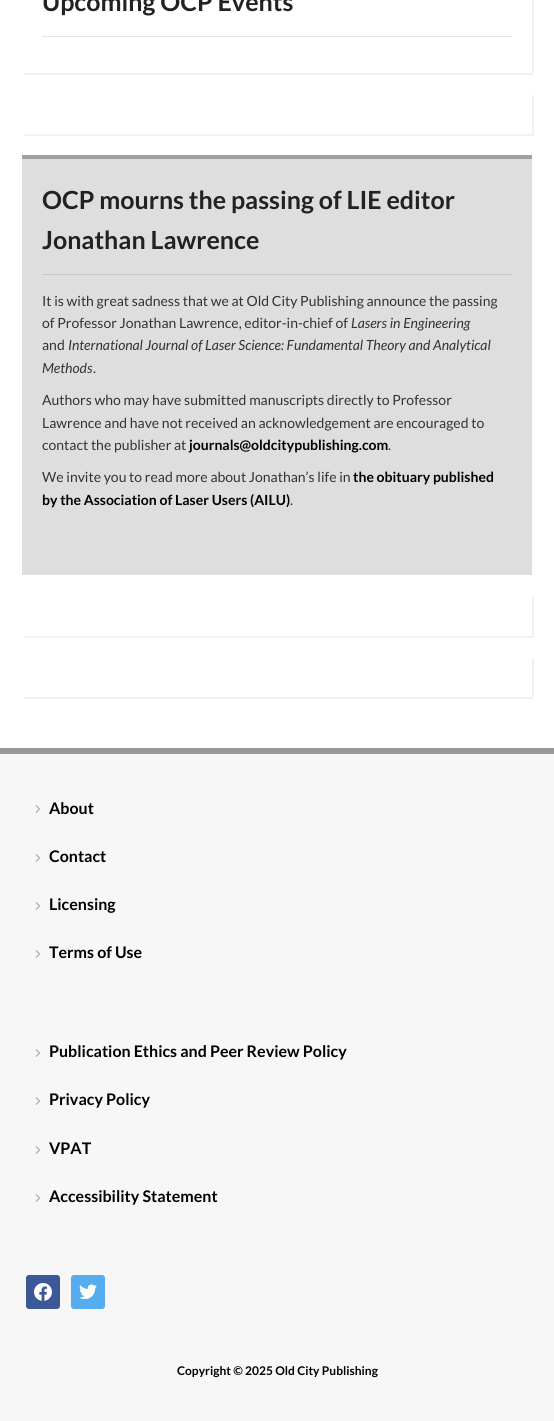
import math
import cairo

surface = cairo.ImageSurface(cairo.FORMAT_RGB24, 554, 1421)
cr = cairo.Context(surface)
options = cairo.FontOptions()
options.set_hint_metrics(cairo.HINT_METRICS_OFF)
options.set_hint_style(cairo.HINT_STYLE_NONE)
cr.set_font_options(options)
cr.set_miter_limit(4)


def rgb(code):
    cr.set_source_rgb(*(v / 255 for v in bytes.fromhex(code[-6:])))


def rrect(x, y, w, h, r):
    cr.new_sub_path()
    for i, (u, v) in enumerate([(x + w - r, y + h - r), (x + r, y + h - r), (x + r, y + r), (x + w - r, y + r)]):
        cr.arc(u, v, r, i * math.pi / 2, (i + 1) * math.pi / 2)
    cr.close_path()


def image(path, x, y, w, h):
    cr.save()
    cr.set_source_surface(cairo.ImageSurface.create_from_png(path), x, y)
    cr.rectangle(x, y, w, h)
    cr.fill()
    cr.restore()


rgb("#ffffff")
cr.paint()
rgb("#f2f2f2")
cr.new_path()
cr.move_to(24, 73)
cr.line_to(24, 75)
cr.line_to(534, 75)
cr.line_to(534, -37)
cr.line_to(532, -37)
cr.line_to(532, 73)
cr.close_path()
cr.fill()
rgb("#e6e6e6")
cr.rectangle(42, 36, 470, 1)
cr.fill()
rgb("#f2f2f2")
cr.new_path()
cr.move_to(24, 134)
cr.line_to(24, 136)
cr.line_to(534, 136)
cr.line_to(534, 95)
cr.line_to(532, 95)
cr.line_to(532, 134)
cr.close_path()
cr.fill()
for x, y, w, h, color in [
    (22, 159, 510, 416, "#dedede"),
    (22, 155, 510, 4, "#a1a1a1"),
    (42, 274, 470, 1, "#c8c8c8"),
]:
    rgb(color)
    cr.rectangle(x, y, w, h)
    cr.fill()
rgb("#f2f2f2")
cr.new_path()
cr.move_to(24, 636)
cr.line_to(24, 638)
cr.line_to(534, 638)
cr.line_to(534, 597)
cr.line_to(532, 597)
cr.line_to(532, 636)
cr.close_path()
cr.fill()
cr.new_path()
cr.move_to(24, 697)
cr.line_to(24, 699)
cr.line_to(534, 699)
cr.line_to(534, 658)
cr.line_to(532, 658)
cr.line_to(532, 697)
cr.close_path()
cr.fill()
rgb("#f7f7f7")
cr.rectangle(0, 754, 554, 667)
cr.fill()
rgb("#999999")
cr.rectangle(0, 748, 554, 6)
cr.fill()
image("img/1.png", 35, 805, 6, 8)
image("img/1.png", 35, 854, 6, 8)
image("img/1.png", 35, 902, 6, 8)
image("img/1.png", 35, 950, 6, 8)
image("img/1.png", 35, 1049, 6, 8)
image("img/1.png", 35, 1097, 6, 8)
image("img/1.png", 35, 1146, 6, 8)
image("img/1.png", 35, 1194, 6, 8)
rgb("#3b5998")
rrect(26, 1275, 34, 34, 3)
cr.fill()
image("img/2.png", 34, 1283, 18, 18)
rgb("#55acee")
rrect(71, 1275, 34, 34, 3)
cr.fill()
image("img/3.png", 79, 1284, 18, 16)
cr.select_font_face("Lato", cairo.FONT_SLANT_NORMAL, cairo.FONT_WEIGHT_BOLD)
cr.set_font_size(25)
rgb("#222222")
for x, y, s in [
    (42, 11, "Upcoming OCP Events"),
    (42, 209, "OCP mourns the passing of LIE editor"),
    (42, 249, "Jonathan Lawrence"),
]:
    cr.move_to(x, y)
    cr.show_text(s)
cr.select_font_face("Lato")
cr.set_font_size(14)
rgb("#333333")
cr.move_to(42, 306)
cr.show_text("It is with great sadness that we at Old City Publishing announce the passing")
cr.move_to(42, 328)
cr.show_text("of Professor Jonathan Lawrence, editor-in-chief of")
cr.select_font_face("Lato", cairo.FONT_SLANT_ITALIC)
cr.move_to(351, 328)
cr.show_text("Lasers in Engineering")
cr.select_font_face("Lato")
cr.move_to(42, 350)
cr.show_text("and")
cr.select_font_face("Lato", cairo.FONT_SLANT_ITALIC)
cr.move_to(68, 350)
cr.show_text("International Journal of Laser Science: Fundamental Theory and Analytical")
cr.move_to(42, 373)
cr.show_text("Methods")
cr.select_font_face("Lato")
for x, y, s in [
    (93, 373, "."),
    (42, 405, "Authors who may have submitted manuscripts directly to Professor"),
    (42, 428, "Lawrence and have not received an acknowledgement are encouraged to"),
    (42, 450, "contact the publisher at"),
]:
    cr.move_to(x, y)
    cr.show_text(s)
cr.select_font_face("Lato", cairo.FONT_SLANT_NORMAL, cairo.FONT_WEIGHT_BOLD)
rgb("#000000")
cr.move_to(189, 450)
cr.show_text("journals@oldcitypublishing.com")
cr.select_font_face("Lato")
rgb("#333333")
cr.move_to(388, 450)
cr.show_text(".")
cr.move_to(42, 482)
cr.show_text("We invite you to read more about Jonathan’s life in")
cr.select_font_face("Lato", cairo.FONT_SLANT_NORMAL, cairo.FONT_WEIGHT_BOLD)
rgb("#000000")
cr.move_to(353, 482)
cr.show_text("the obituary published")
cr.move_to(42, 505)
cr.show_text("by the Association of Laser Users (AILU)")
cr.select_font_face("Lato")
rgb("#333333")
cr.move_to(290, 505)
cr.show_text(".")
cr.select_font_face("Lato", cairo.FONT_SLANT_NORMAL, cairo.FONT_WEIGHT_BOLD)
cr.set_font_size(16)
rgb("#000000")
for x, y, s in [
    (49, 814, "About"),
    (49, 862, "Contact"),
    (49, 910, "Licensing"),
    (49, 958, "Terms of Use"),
    (49, 1057, "Publication Ethics and Peer Review Policy"),
    (49, 1105, "Privacy Policy"),
    (49, 1154, "VPAT"),
    (49, 1202, "Accessibility Statement"),
]:
    cr.move_to(x, y)
    cr.show_text(s)
cr.set_font_size(12)
cr.move_to(177, 1375)
cr.show_text("Copyright © 2025 Old City Publishing")
surface.write_to_png("page.png")
